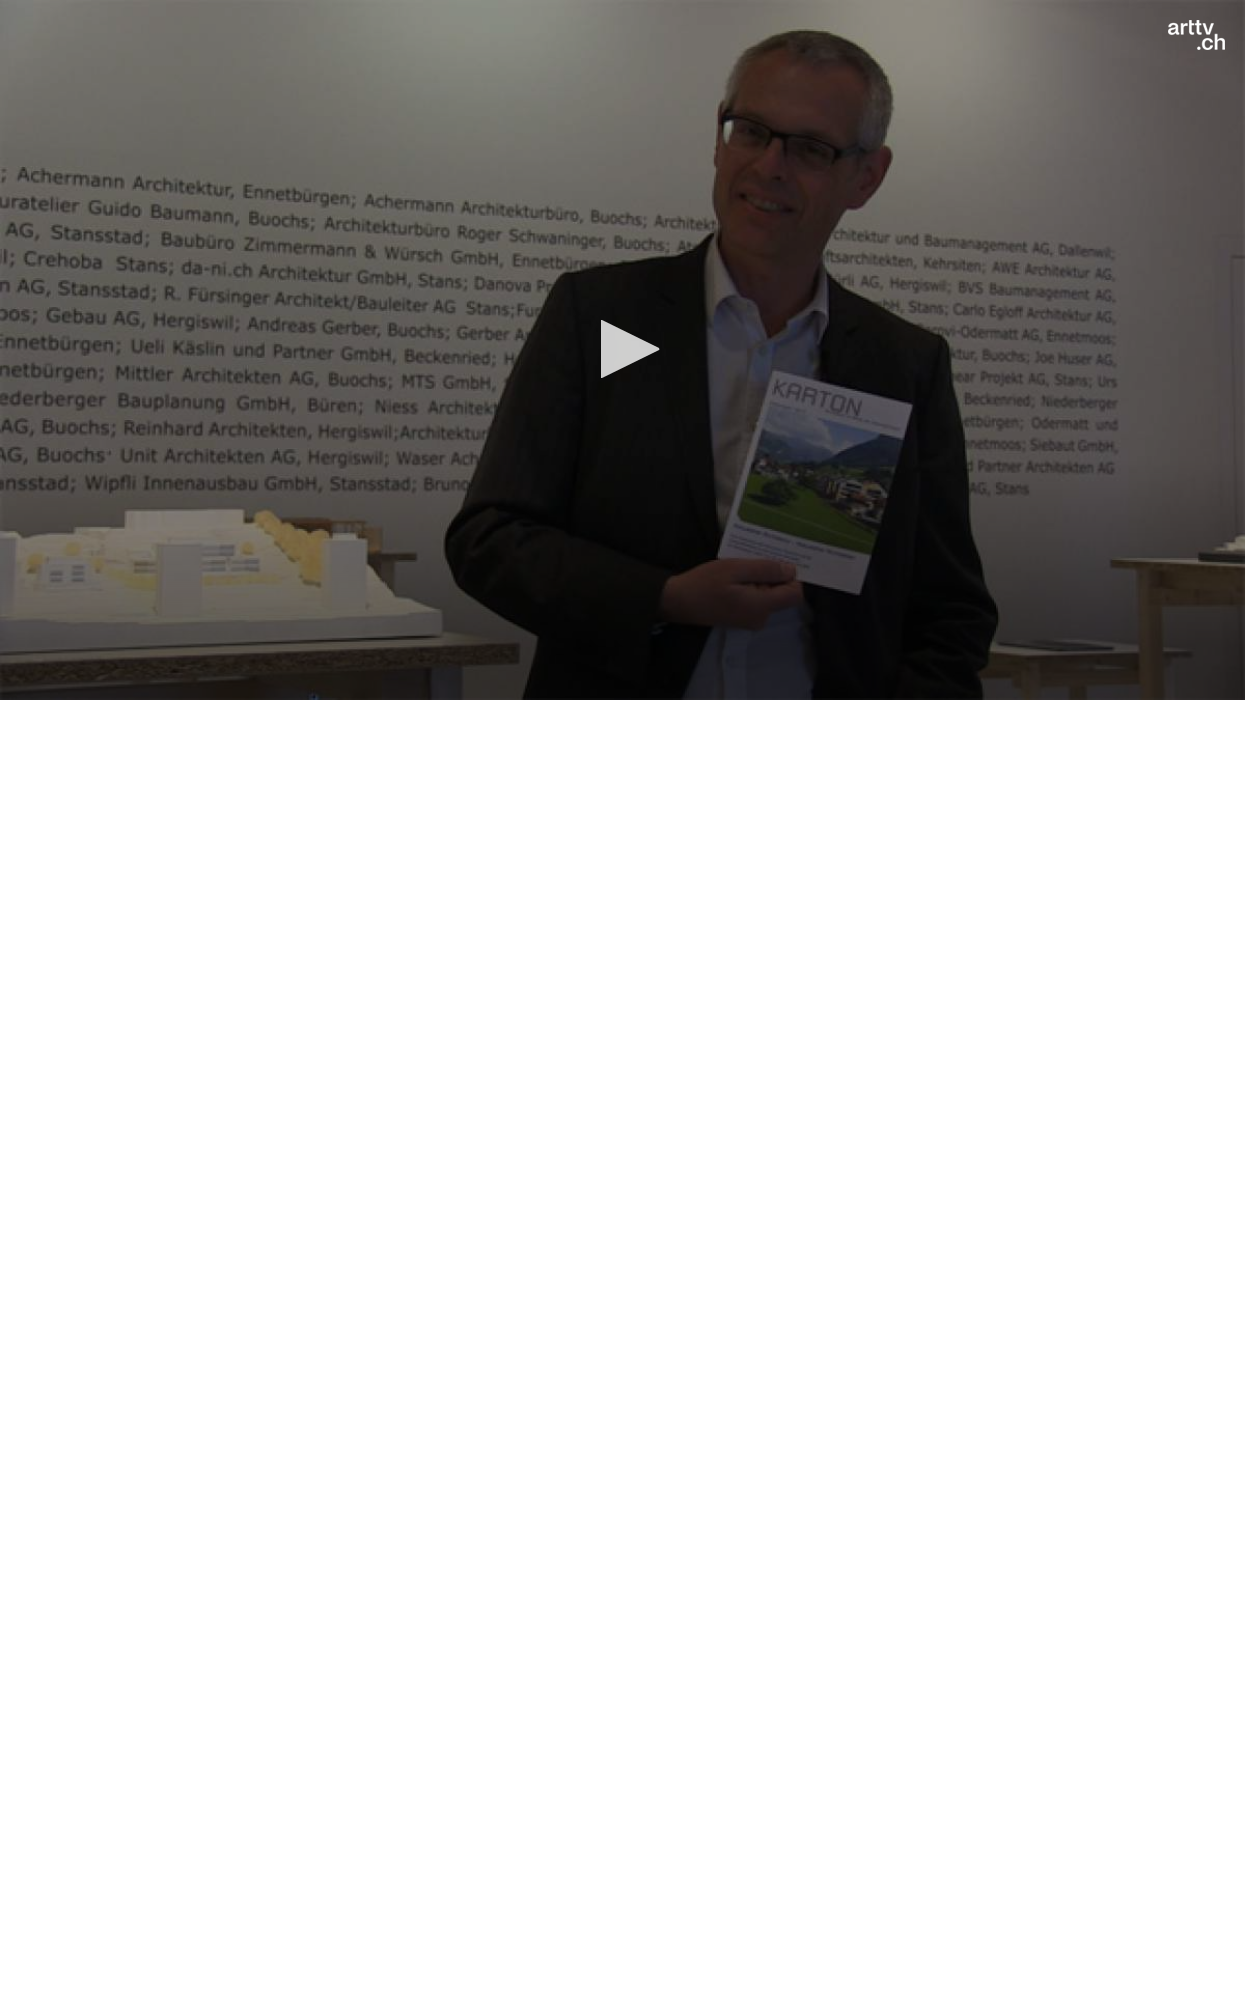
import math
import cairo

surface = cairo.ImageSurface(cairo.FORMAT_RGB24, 1245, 2012)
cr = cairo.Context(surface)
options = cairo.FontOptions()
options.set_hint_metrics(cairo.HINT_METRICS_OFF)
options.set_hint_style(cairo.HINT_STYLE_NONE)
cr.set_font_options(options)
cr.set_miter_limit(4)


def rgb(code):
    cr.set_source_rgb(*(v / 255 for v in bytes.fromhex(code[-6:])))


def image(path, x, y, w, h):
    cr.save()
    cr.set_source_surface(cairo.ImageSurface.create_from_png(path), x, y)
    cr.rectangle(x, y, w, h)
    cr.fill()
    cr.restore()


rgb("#ffffff")
cr.paint()
image("img/1.png", 0, 0, 1245, 700)
image("img/2.png", 1168, 20, 57, 30)
cr.set_source_rgba(1, 1, 1, 0.8)
cr.new_path()
cr.move_to(602, 378)
cr.line_to(601, 378)
cr.line_to(601, 320)
cr.line_to(602, 320)
cr.line_to(659, 348)
cr.curve_to(659, 349, 660, 349, 659, 350)
cr.close_path()
cr.fill()
surface.write_to_png("page.png")
